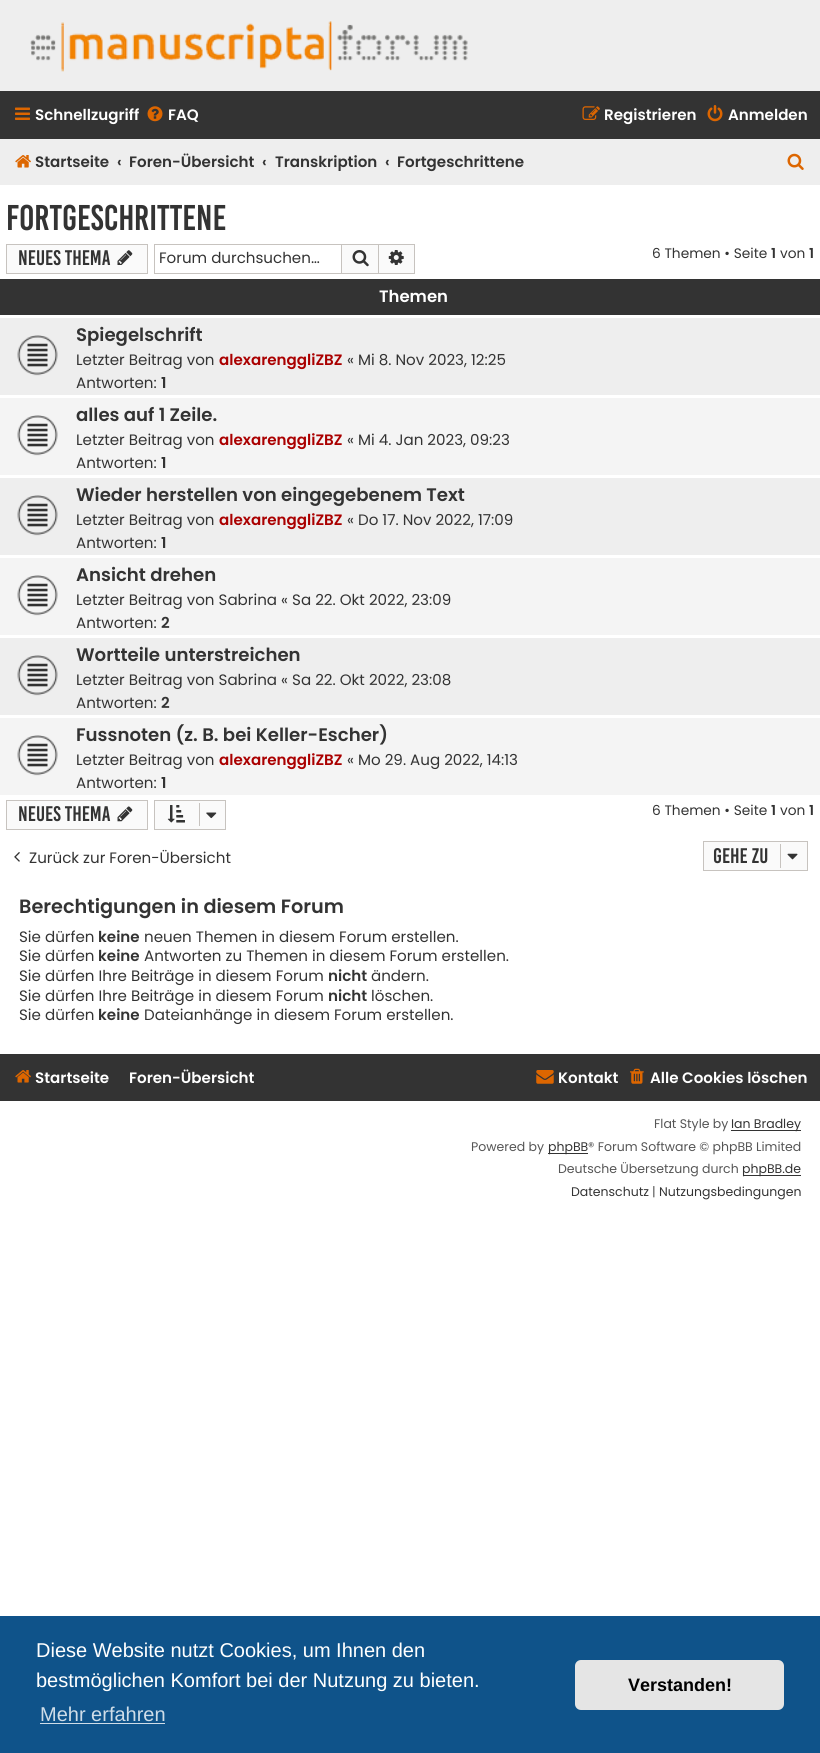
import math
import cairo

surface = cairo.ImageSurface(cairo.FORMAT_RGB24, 820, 1753)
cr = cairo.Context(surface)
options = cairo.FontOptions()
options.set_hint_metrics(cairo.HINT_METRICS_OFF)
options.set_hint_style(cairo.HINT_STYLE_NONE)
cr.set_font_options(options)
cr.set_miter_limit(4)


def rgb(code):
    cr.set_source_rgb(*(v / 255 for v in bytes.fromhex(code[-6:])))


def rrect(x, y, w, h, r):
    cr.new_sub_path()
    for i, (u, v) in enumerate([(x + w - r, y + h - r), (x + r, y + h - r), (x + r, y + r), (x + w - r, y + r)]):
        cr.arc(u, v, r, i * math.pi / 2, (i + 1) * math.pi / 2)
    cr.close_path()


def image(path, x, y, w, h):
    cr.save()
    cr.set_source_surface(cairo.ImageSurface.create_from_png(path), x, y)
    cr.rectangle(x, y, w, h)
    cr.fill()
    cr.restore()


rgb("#ffffff")
cr.paint()
rgb("#eeeeee")
cr.rectangle(0, 0, 820, 91)
cr.fill()
image("img/1.png", 30, 21, 438, 51)
rgb("#333333")
cr.rectangle(0, 91, 820, 48)
cr.fill()
image("img/2.png", 15, 107, 15, 13)
image("img/3.png", 147, 106, 16, 16)
image("img/4.png", 582, 106, 18, 14)
image("img/5.png", 707, 105, 16, 17)
rgb("#eeeeee")
cr.rectangle(0, 139, 820, 46)
cr.fill()
image("img/6.png", 15, 155, 16, 13)
image("img/7.png", 787, 153, 17, 17)
rgb("#fafafa")
cr.rectangle(6.5, 244.5, 141, 29)
cr.fill_preserve()
rgb("#c7c3bf")
cr.set_line_width(1)
cr.stroke()
image("img/8.png", 117, 250, 16, 15)
for x, y, w, h, color in [
    (154, 244, 187, 1, "#c7c3bf"),
    (154, 273, 187, 1, "#c7c3bf"),
    (154, 244, 1, 30, "#c7c3bf"),
]:
    rgb(color)
    cr.rectangle(x, y, w, h)
    cr.fill()
rgb("#fafafa")
cr.rectangle(341.5, 244.5, 37, 29)
cr.fill_preserve()
rgb("#c7c3bf")
cr.stroke()
image("img/9.png", 352, 250, 17, 17)
for x, y, w, h, color in [
    (379, 245, 35, 28, "#fafafa"),
    (379, 244, 36, 1, "#c7c3bf"),
    (414, 244, 1, 30, "#c7c3bf"),
    (379, 273, 36, 1, "#c7c3bf"),
]:
    rgb(color)
    cr.rectangle(x, y, w, h)
    cr.fill()
image("img/10.png", 388, 250, 16, 15)
rgb("#333333")
cr.rectangle(0, 279, 820, 36)
cr.fill()
rgb("#eeeeee")
cr.rectangle(0, 318, 820, 77)
cr.fill()
image("img/11.png", 17, 335, 41, 41)
rgb("#f4f4f4")
cr.rectangle(0, 398, 820, 77)
cr.fill()
image("img/12.png", 17, 415, 41, 41)
rgb("#eeeeee")
cr.rectangle(0, 478, 820, 77)
cr.fill()
image("img/11.png", 17, 495, 41, 41)
rgb("#f4f4f4")
cr.rectangle(0, 558, 820, 77)
cr.fill()
image("img/13.png", 17, 575, 41, 41)
rgb("#eeeeee")
cr.rectangle(0, 638, 820, 77)
cr.fill()
image("img/11.png", 17, 655, 41, 41)
rgb("#f4f4f4")
cr.rectangle(0, 718, 820, 77)
cr.fill()
image("img/12.png", 17, 735, 41, 41)
rgb("#fafafa")
cr.rectangle(6.5, 800.5, 141, 29)
cr.fill_preserve()
rgb("#c7c3bf")
cr.stroke()
image("img/14.png", 117, 806, 16, 16)
rgb("#fafafa")
cr.rectangle(154.5, 800.5, 71, 29)
cr.fill_preserve()
rgb("#c7c3bf")
cr.stroke()
image("img/15.png", 167, 805, 18, 18)
cr.rectangle(199, 803, 1, 23)
cr.fill()
image("img/16.png", 206, 812, 11, 7)
image("img/17.png", 14, 852, 6, 10)
rgb("#fafafa")
cr.rectangle(703.5, 841.5, 104, 29)
cr.fill_preserve()
rgb("#c7c3bf")
cr.stroke()
cr.rectangle(780, 844, 1, 24)
cr.fill()
image("img/18.png", 787, 853, 11, 7)
rgb("#333333")
cr.rectangle(0, 1054, 820, 47)
cr.fill()
image("img/19.png", 15, 1070, 16, 13)
image("img/20.png", 536, 1070, 18, 14)
image("img/21.png", 630, 1068, 14, 16)
for x, y, w, h, color in [
    (731, 1130, 70, 1, "#333333"),
    (548, 1153, 40, 1, "#333333"),
    (743, 1175, 58, 1, "#333333"),
    (0, 1616, 820, 137, "#0f538a"),
    (40, 1723, 125, 1, "#cfdde8"),
]:
    rgb(color)
    cr.rectangle(x, y, w, h)
    cr.fill()
rgb("#e5e5e5")
rrect(575, 1660, 209, 50, 6)
cr.fill()
cr.select_font_face("Poppins SemiBold")
cr.set_font_size(15.1)
rgb("#ffffff")
for x, y, s in [
    (35, 120, "Schnellzugriff"),
    (168, 120, "FAQ"),
    (604, 120, "Registrieren"),
    (728, 120, "Anmelden"),
]:
    cr.move_to(x, y)
    cr.show_text(s)
rgb("#333333")
for x, y, s in [
    (35, 167, "Startseite"),
    (117, 167, "‹"),
    (129, 167, "Foren-Übersicht"),
    (262, 167, "‹"),
    (275, 167, "Transkription"),
    (385, 167, "‹"),
    (397, 167, "Fortgeschrittene"),
]:
    cr.move_to(x, y)
    cr.show_text(s)
cr.select_font_face("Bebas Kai")
cr.set_font_size(27.5)
cr.move_to(6, 230)
cr.show_text("Fortgeschrittene")
cr.set_font_size(16.25)
cr.move_to(18, 265)
cr.show_text("Neues Thema")
cr.select_font_face("Poppins")
cr.set_font_size(15.1)
cr.move_to(159, 263)
cr.show_text("Forum durchsuchen…")
cr.set_font_size(13.75)
cr.move_to(652, 258)
cr.show_text("6 Themen • Seite")
cr.select_font_face("Poppins SemiBold")
cr.move_to(771, 258)
cr.show_text("1")
cr.select_font_face("Poppins")
cr.move_to(780, 258)
cr.show_text("von")
cr.select_font_face("Poppins SemiBold")
cr.move_to(809, 258)
cr.show_text("1")
cr.set_font_size(16.5)
rgb("#ffffff")
cr.move_to(379, 302)
cr.show_text("Themen")
cr.set_font_size(18.15)
rgb("#333333")
cr.move_to(76, 341)
cr.show_text("Spiegelschrift")
cr.select_font_face("Poppins")
cr.set_font_size(15.1)
cr.move_to(76, 365)
cr.show_text("Letzter Beitrag von")
cr.select_font_face("Poppins SemiBold")
rgb("#aa0000")
cr.move_to(219, 365)
cr.show_text("alexarenggliZBZ")
cr.select_font_face("Poppins")
rgb("#333333")
cr.move_to(347, 365)
cr.show_text("« Mi 8. Nov 2023, 12:25")
cr.move_to(76, 388)
cr.show_text("Antworten:")
cr.select_font_face("Poppins SemiBold")
cr.move_to(161, 388)
cr.show_text("1")
cr.set_font_size(18.15)
cr.move_to(76, 421)
cr.show_text("alles auf 1 Zeile.")
cr.select_font_face("Poppins")
cr.set_font_size(15.1)
cr.move_to(76, 445)
cr.show_text("Letzter Beitrag von")
cr.select_font_face("Poppins SemiBold")
rgb("#aa0000")
cr.move_to(219, 445)
cr.show_text("alexarenggliZBZ")
cr.select_font_face("Poppins")
rgb("#333333")
cr.move_to(347, 445)
cr.show_text("« Mi 4. Jan 2023, 09:23")
cr.move_to(76, 468)
cr.show_text("Antworten:")
cr.select_font_face("Poppins SemiBold")
cr.move_to(161, 468)
cr.show_text("1")
cr.set_font_size(18.15)
cr.move_to(76, 501)
cr.show_text("Wieder herstellen von eingegebenem Text")
cr.select_font_face("Poppins")
cr.set_font_size(15.1)
cr.move_to(76, 525)
cr.show_text("Letzter Beitrag von")
cr.select_font_face("Poppins SemiBold")
rgb("#aa0000")
cr.move_to(219, 525)
cr.show_text("alexarenggliZBZ")
cr.select_font_face("Poppins")
rgb("#333333")
cr.move_to(347, 525)
cr.show_text("« Do 17. Nov 2022, 17:09")
cr.move_to(76, 548)
cr.show_text("Antworten:")
cr.select_font_face("Poppins SemiBold")
cr.move_to(161, 548)
cr.show_text("1")
cr.set_font_size(18.15)
cr.move_to(76, 581)
cr.show_text("Ansicht drehen")
cr.select_font_face("Poppins")
cr.set_font_size(15.1)
cr.move_to(76, 605)
cr.show_text("Letzter Beitrag von Sabrina « Sa 22. Okt 2022, 23:09")
cr.move_to(76, 628)
cr.show_text("Antworten:")
cr.select_font_face("Poppins SemiBold")
cr.move_to(161, 628)
cr.show_text("2")
cr.set_font_size(18.15)
cr.move_to(76, 661)
cr.show_text("Wortteile unterstreichen")
cr.select_font_face("Poppins")
cr.set_font_size(15.1)
cr.move_to(76, 685)
cr.show_text("Letzter Beitrag von Sabrina « Sa 22. Okt 2022, 23:08")
cr.move_to(76, 708)
cr.show_text("Antworten:")
cr.select_font_face("Poppins SemiBold")
cr.move_to(161, 708)
cr.show_text("2")
cr.set_font_size(18.15)
cr.move_to(76, 741)
cr.show_text("Fussnoten (z. B. bei Keller-Escher)")
cr.select_font_face("Poppins")
cr.set_font_size(15.1)
cr.move_to(76, 765)
cr.show_text("Letzter Beitrag von")
cr.select_font_face("Poppins SemiBold")
rgb("#aa0000")
cr.move_to(219, 765)
cr.show_text("alexarenggliZBZ")
cr.select_font_face("Poppins")
rgb("#333333")
cr.move_to(347, 765)
cr.show_text("« Mo 29. Aug 2022, 14:13")
cr.move_to(76, 788)
cr.show_text("Antworten:")
cr.select_font_face("Poppins SemiBold")
cr.move_to(161, 788)
cr.show_text("1")
cr.select_font_face("Bebas Kai")
cr.set_font_size(16.25)
cr.move_to(18, 821)
cr.show_text("Neues Thema")
cr.select_font_face("Poppins")
cr.set_font_size(13.75)
cr.move_to(652, 815)
cr.show_text("6 Themen • Seite")
cr.select_font_face("Poppins SemiBold")
cr.move_to(771, 815)
cr.show_text("1")
cr.select_font_face("Poppins")
cr.move_to(780, 815)
cr.show_text("von")
cr.select_font_face("Poppins SemiBold")
cr.move_to(809, 815)
cr.show_text("1")
cr.select_font_face("Poppins")
cr.set_font_size(15.1)
cr.move_to(29, 863)
cr.show_text("Zurück zur Foren-Übersicht")
cr.select_font_face("Bebas Kai")
cr.set_font_size(16.25)
cr.move_to(713, 863)
cr.show_text("Gehe zu")
cr.select_font_face("Poppins SemiBold")
cr.set_font_size(19.25)
cr.move_to(19, 913)
cr.show_text("Berechtigungen in diesem Forum")
cr.select_font_face("Poppins")
cr.set_font_size(15.1)
cr.move_to(19, 942)
cr.show_text("Sie dürfen")
cr.select_font_face("Poppins SemiBold")
cr.move_to(98, 942)
cr.show_text("keine")
cr.select_font_face("Poppins")
cr.move_to(144, 942)
cr.show_text("neuen Themen in diesem Forum erstellen.")
cr.move_to(19, 961)
cr.show_text("Sie dürfen")
cr.select_font_face("Poppins SemiBold")
cr.move_to(98, 961)
cr.show_text("keine")
cr.select_font_face("Poppins")
cr.move_to(144, 961)
cr.show_text("Antworten zu Themen in diesem Forum erstellen.")
cr.move_to(19, 981)
cr.show_text("Sie dürfen Ihre Beiträge in diesem Forum")
cr.select_font_face("Poppins SemiBold")
cr.move_to(328, 981)
cr.show_text("nicht")
cr.select_font_face("Poppins")
cr.move_to(371, 981)
cr.show_text("ändern.")
cr.move_to(19, 1001)
cr.show_text("Sie dürfen Ihre Beiträge in diesem Forum")
cr.select_font_face("Poppins SemiBold")
cr.move_to(328, 1001)
cr.show_text("nicht")
cr.select_font_face("Poppins")
cr.move_to(371, 1001)
cr.show_text("löschen.")
cr.move_to(19, 1020)
cr.show_text("Sie dürfen")
cr.select_font_face("Poppins SemiBold")
cr.move_to(98, 1020)
cr.show_text("keine")
cr.select_font_face("Poppins")
cr.move_to(144, 1020)
cr.show_text("Dateianhänge in diesem Forum erstellen.")
cr.select_font_face("Poppins SemiBold")
rgb("#ffffff")
for x, y, s in [
    (35, 1083, "Startseite"),
    (129, 1083, "Foren-Übersicht"),
    (558, 1083, "Kontakt"),
    (650, 1083, "Alle Cookies löschen"),
]:
    cr.move_to(x, y)
    cr.show_text(s)
cr.select_font_face("Poppins")
cr.set_font_size(12.5)
rgb("#555555")
cr.move_to(654, 1128)
cr.show_text("Flat Style by")
rgb("#333333")
cr.move_to(731, 1128)
cr.show_text("Ian Bradley")
rgb("#555555")
cr.move_to(471, 1151)
cr.show_text("Powered by")
rgb("#333333")
cr.move_to(548, 1151)
cr.show_text("phpBB")
rgb("#555555")
cr.move_to(588, 1151)
cr.show_text("® Forum Software © phpBB Limited")
cr.move_to(558, 1173)
cr.show_text("Deutsche Übersetzung durch")
rgb("#333333")
cr.move_to(742, 1173)
cr.show_text("phpBB.de")
cr.move_to(571, 1196)
cr.show_text("Datenschutz")
rgb("#555555")
cr.move_to(652, 1196)
cr.show_text("|")
rgb("#333333")
cr.move_to(659, 1196)
cr.show_text("Nutzungsbedingungen")
cr.select_font_face("Liberation Sans")
cr.set_font_size(20)
rgb("#ffffff")
cr.move_to(36, 1657)
cr.show_text("Diese Website nutzt Cookies, um Ihnen den")
cr.move_to(36, 1687)
cr.show_text("bestmöglichen Komfort bei der Nutzung zu bieten.")
rgb("#cfdde8")
cr.move_to(40, 1721)
cr.show_text("Mehr erfahren")
cr.select_font_face("Liberation Sans", cairo.FONT_SLANT_NORMAL, cairo.FONT_WEIGHT_BOLD)
cr.set_font_size(18)
rgb("#000000")
cr.move_to(628, 1691)
cr.show_text("Verstanden!")
surface.write_to_png("page.png")
